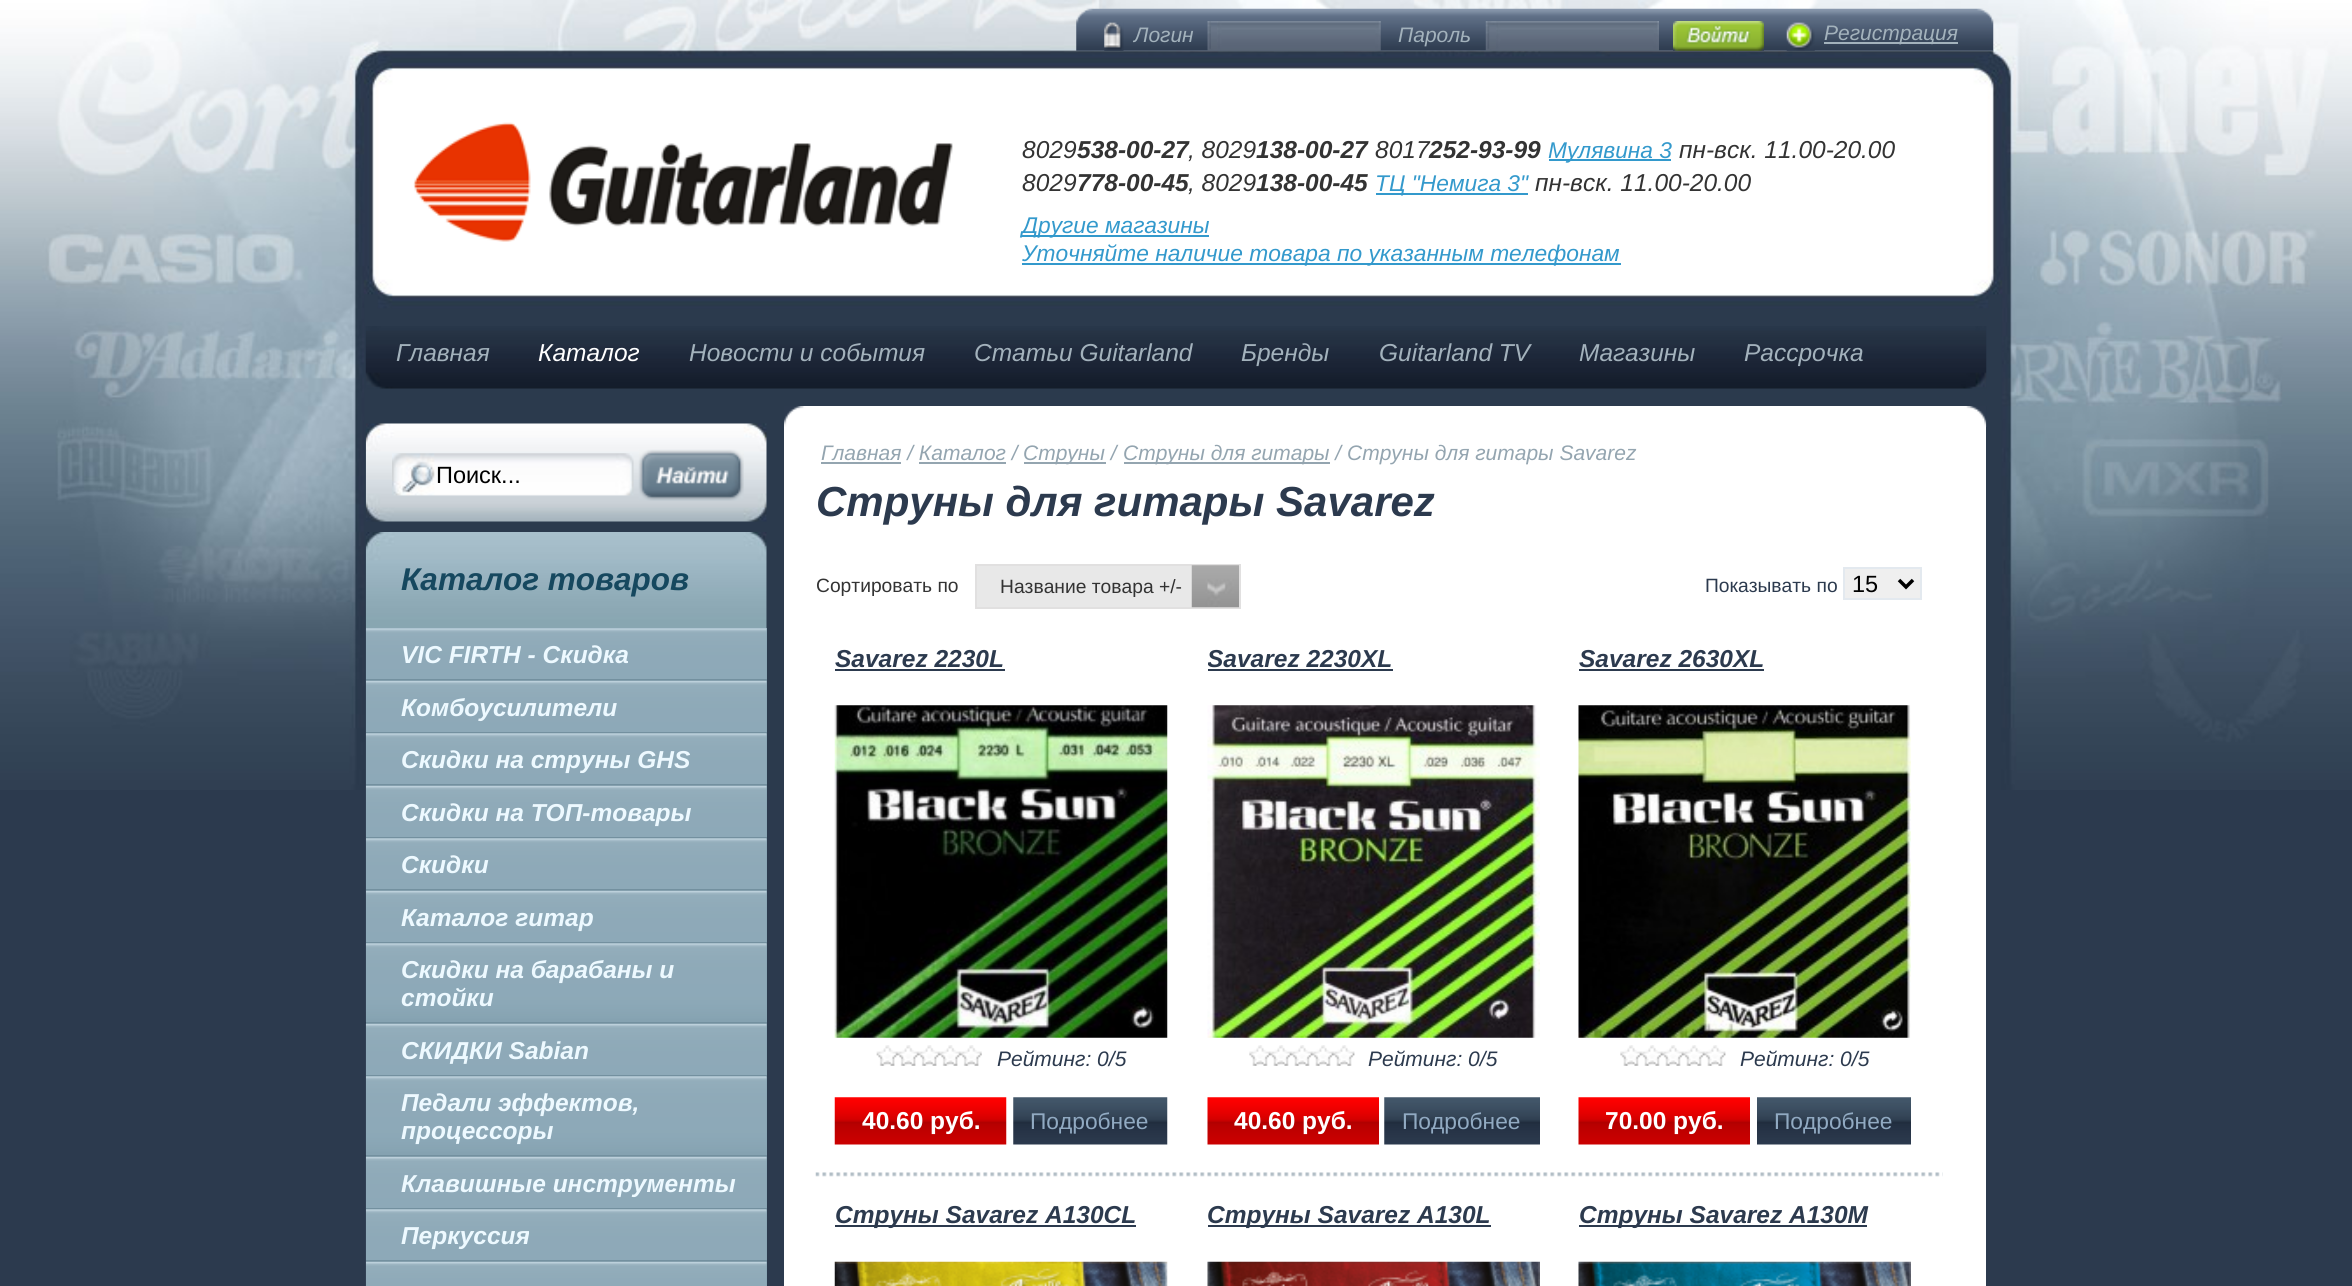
import math
import cairo

surface = cairo.ImageSurface(cairo.FORMAT_RGB24, 2352, 1286)
cr = cairo.Context(surface)
options = cairo.FontOptions()
options.set_hint_metrics(cairo.HINT_METRICS_OFF)
options.set_hint_style(cairo.HINT_STYLE_NONE)
cr.set_font_options(options)
cr.set_miter_limit(4)


def rgb(code):
    cr.set_source_rgb(*(v / 255 for v in bytes.fromhex(code[-6:])))


def image(path, x, y, w, h):
    cr.save()
    cr.set_source_surface(cairo.ImageSurface.create_from_png(path), x, y)
    cr.rectangle(x, y, w, h)
    cr.fill()
    cr.restore()


rgb("#2c3a4e")
cr.paint()
image("img/1.png", 0, 0, 2352, 790)
image("img/2.png", 1076, 8, 918, 43)
image("img/3.png", 1104, 22, 20, 29)
image("img/4.png", 1207, 21, 174, 30)
image("img/5.png", 1211, 21, 6, 28)
image("img/6.png", 1485, 21, 174, 30)
image("img/7.png", 1489, 25, 7, 24)
image("img/8.png", 1673, 21, 91, 30)
image("img/9.png", 1786, 22, 29, 29)
rgb("#a3b2bc")
cr.rectangle(1824, 42, 134, 2)
cr.fill()
image("img/10.png", 413, 122, 540, 120)
for x, y, w, h, color in [
    (1549, 159, 122, 2, "#3399cc"),
    (1376, 193, 152, 2, "#3399cc"),
    (1022, 235, 187, 2, "#3399cc"),
    (1022, 263, 599, 2, "#3399cc"),
]:
    rgb(color)
    cr.rectangle(x, y, w, h)
    cr.fill()
image("img/11.png", 365, 326, 1622, 63)
image("img/12.png", 365, 423, 402, 99)
image("img/13.png", 392, 453, 242, 43)
image("img/14.png", 638, 449, 106, 52)
image("img/15.png", 365, 532, 402, 96)
rgb("#85a2b1")
cr.rectangle(366, 628, 401, 658)
cr.fill()
image("img/16.png", 365, 628, 402, 53)
rgb("#73909f")
cr.rectangle(366, 679, 401, 2)
cr.fill()
image("img/17.png", 365, 680, 402, 53)
cr.rectangle(366, 732, 401, 2)
cr.fill()
image("img/18.png", 365, 733, 402, 53)
cr.rectangle(366, 784, 401, 2)
cr.fill()
image("img/19.png", 365, 785, 402, 53)
cr.rectangle(366, 837, 401, 2)
cr.fill()
image("img/20.png", 365, 838, 402, 53)
cr.rectangle(366, 889, 401, 2)
cr.fill()
image("img/21.png", 365, 890, 402, 53)
cr.rectangle(366, 942, 401, 2)
cr.fill()
image("img/22.png", 365, 943, 402, 79)
cr.rectangle(366, 1022, 401, 2)
cr.fill()
image("img/23.png", 365, 1023, 402, 53)
cr.rectangle(366, 1075, 401, 2)
cr.fill()
image("img/22.png", 365, 1076, 402, 79)
cr.rectangle(366, 1155, 401, 2)
cr.fill()
image("img/23.png", 365, 1156, 402, 53)
cr.rectangle(366, 1208, 401, 2)
cr.fill()
image("img/20.png", 365, 1209, 402, 53)
cr.rectangle(366, 1260, 401, 2)
cr.fill()
image("img/24.png", 365, 1261, 402, 25)
image("img/25.png", 784, 406, 1203, 21)
for x, y, w, h, color in [
    (784, 427, 1202, 859, "#ffffff"),
    (821, 462, 80, 2, "#94a5b0"),
    (1024, 462, 82, 2, "#94a5b0"),
    (1124, 462, 206, 2, "#94a5b0"),
    (919, 462, 87, 2, "#94a5b0"),
    (977, 566, 215, 41, "#e8e8e8"),
]:
    rgb(color)
    cr.rectangle(x, y, w, h)
    cr.fill()
cr.rectangle(976, 565, 264, 43)
rgb("#e1e0e0")
cr.stroke()
image("img/26.png", 1191, 565, 48, 43)
rgb("#efefef")
cr.rectangle(1844, 568, 77, 31)
cr.fill_preserve()
rgb("#e3e9ef")
cr.stroke()
cr.new_path()
cr.move_to(1899, 580)
cr.line_to(1906, 587)
cr.line_to(1913, 580)
rgb("#000000")
cr.set_line_width(3.5)
cr.stroke()
rgb("#2c3a4e")
cr.rectangle(835, 669, 170, 2)
cr.fill()
image("img/27.png", 834, 705, 334, 333)
image("img/28.png", 876, 1045, 106, 21)
image("img/29.png", 834, 1097, 173, 48)
image("img/30.png", 1013, 1097, 155, 48)
cr.rectangle(1208, 669, 185, 2)
cr.fill()
image("img/31.png", 1207, 705, 333, 333)
image("img/32.png", 1249, 1045, 106, 21)
image("img/33.png", 1207, 1097, 172, 48)
image("img/34.png", 1384, 1097, 156, 48)
cr.rectangle(1579, 669, 185, 2)
cr.fill()
image("img/35.png", 1578, 705, 333, 333)
image("img/36.png", 1620, 1045, 106, 21)
image("img/33.png", 1578, 1097, 172, 48)
image("img/37.png", 1757, 1097, 154, 48)
image("img/38.png", 815, 1172, 1128, 5)
cr.rectangle(835, 1225, 301, 2)
cr.fill()
image("img/39.png", 834, 1261, 334, 25)
cr.rectangle(1208, 1225, 283, 2)
cr.fill()
image("img/40.png", 1207, 1261, 333, 25)
cr.rectangle(1579, 1225, 288, 2)
cr.fill()
image("img/41.png", 1578, 1261, 333, 25)
cr.select_font_face("Liberation Sans", cairo.FONT_SLANT_ITALIC)
cr.set_font_size(21)
rgb("#a3b2bc")
for x, y, s in [
    (1134, 42, "Логин"),
    (1398, 42, "Пароль"),
    (1824, 40, "Регистрация"),
]:
    cr.move_to(x, y)
    cr.show_text(s)
cr.set_font_size(24.5)
rgb("#333333")
cr.move_to(1022, 158)
cr.show_text("8029")
cr.select_font_face("Liberation Sans", cairo.FONT_SLANT_ITALIC, cairo.FONT_WEIGHT_BOLD)
cr.move_to(1077, 158)
cr.show_text("538-00-27")
cr.select_font_face("Liberation Sans", cairo.FONT_SLANT_ITALIC)
cr.move_to(1188, 158)
cr.show_text(", 8029")
cr.select_font_face("Liberation Sans", cairo.FONT_SLANT_ITALIC, cairo.FONT_WEIGHT_BOLD)
cr.move_to(1256, 158)
cr.show_text("138-00-27")
cr.select_font_face("Liberation Sans", cairo.FONT_SLANT_ITALIC)
cr.move_to(1375, 158)
cr.show_text("8017")
cr.select_font_face("Liberation Sans", cairo.FONT_SLANT_ITALIC, cairo.FONT_WEIGHT_BOLD)
cr.move_to(1429, 158)
cr.show_text("252-93-99")
cr.select_font_face("Liberation Sans", cairo.FONT_SLANT_ITALIC)
cr.set_font_size(22.75)
rgb("#3399cc")
cr.move_to(1548, 158)
cr.show_text("Мулявина 3")
cr.set_font_size(24.5)
rgb("#333333")
cr.move_to(1679, 158)
cr.show_text("пн-вск. 11.00-20.00")
cr.move_to(1022, 191)
cr.show_text("8029")
cr.select_font_face("Liberation Sans", cairo.FONT_SLANT_ITALIC, cairo.FONT_WEIGHT_BOLD)
cr.move_to(1077, 191)
cr.show_text("778-00-45")
cr.select_font_face("Liberation Sans", cairo.FONT_SLANT_ITALIC)
cr.move_to(1188, 191)
cr.show_text(", 8029")
cr.select_font_face("Liberation Sans", cairo.FONT_SLANT_ITALIC, cairo.FONT_WEIGHT_BOLD)
cr.move_to(1256, 191)
cr.show_text("138-00-45")
cr.select_font_face("Liberation Sans", cairo.FONT_SLANT_ITALIC)
cr.set_font_size(22.75)
rgb("#3399cc")
cr.move_to(1375, 191)
cr.show_text("ТЦ \"Немига 3\"")
cr.set_font_size(24.5)
rgb("#333333")
cr.move_to(1535, 191)
cr.show_text("пн-вск. 11.00-20.00")
cr.set_font_size(22.75)
rgb("#3399cc")
cr.move_to(1022, 233)
cr.show_text("Другие магазины")
cr.move_to(1022, 261)
cr.show_text("Уточняйте наличие товара по указанным телефонам")
cr.set_font_size(24.5)
rgb("#a3b2bc")
cr.move_to(396, 361)
cr.show_text("Главная")
rgb("#ffffff")
cr.move_to(538, 361)
cr.show_text("Каталог")
rgb("#a3b2bc")
for x, y, s in [
    (689, 361, "Новости и события"),
    (974, 361, "Статьи Guitarland"),
    (1241, 361, "Бренды"),
    (1379, 361, "Guitarland TV"),
    (1579, 361, "Магазины"),
    (1744, 361, "Рассрочка"),
]:
    cr.move_to(x, y)
    cr.show_text(s)
cr.select_font_face("Liberation Sans")
cr.set_font_size(23.5)
rgb("#000000")
cr.move_to(436, 483)
cr.show_text("Поиск...")
cr.select_font_face("Liberation Sans", cairo.FONT_SLANT_ITALIC, cairo.FONT_WEIGHT_BOLD)
cr.set_font_size(31.5)
rgb("#16485f")
cr.move_to(401, 590)
cr.show_text("Каталог товаров")
cr.set_font_size(24.5)
rgb("#edf9ff")
for x, y, s in [
    (401, 663, "VIC FIRTH - Скидка"),
    (401, 716, "Комбоусилители"),
    (401, 768, "Скидки на струны GHS"),
    (401, 821, "Скидки на ТОП-товары"),
    (401, 873, "Скидки"),
    (401, 926, "Каталог гитар"),
    (401, 978, "Скидки на барабаны и"),
    (401, 1006, "стойки"),
    (401, 1059, "СКИДКИ Sabian"),
    (401, 1111, "Педали эффектов,"),
    (401, 1139, "процессоры"),
    (401, 1192, "Клавишные инструменты"),
    (401, 1244, "Перкуссия"),
]:
    cr.move_to(x, y)
    cr.show_text(s)
cr.select_font_face("Liberation Sans", cairo.FONT_SLANT_ITALIC)
cr.set_font_size(21)
rgb("#94a5b0")
for x, y, s in [
    (821, 460, "Главная / Каталог /"),
    (1023, 460, "Струны /"),
    (1123, 460, "Струны для гитары / Струны для гитары Savarez"),
]:
    cr.move_to(x, y)
    cr.show_text(s)
cr.select_font_face("Liberation Sans", cairo.FONT_SLANT_ITALIC, cairo.FONT_WEIGHT_BOLD)
cr.set_font_size(42)
rgb("#2c3a4e")
cr.move_to(816, 516)
cr.show_text("Струны для гитары Savarez")
cr.select_font_face("Liberation Sans")
cr.set_font_size(19.25)
rgb("#333333")
cr.move_to(816, 592)
cr.show_text("Сортировать по")
cr.move_to(1000, 593)
cr.show_text("Название товара +/-")
rgb("#2c3a4e")
cr.move_to(1705, 592)
cr.show_text("Показывать по")
cr.set_font_size(23.5)
rgb("#000000")
cr.move_to(1852, 592)
cr.show_text("15")
cr.select_font_face("Liberation Sans", cairo.FONT_SLANT_ITALIC, cairo.FONT_WEIGHT_BOLD)
cr.set_font_size(24.5)
rgb("#2c3a4e")
cr.move_to(835, 667)
cr.show_text("Savarez 2230L")
cr.select_font_face("Liberation Sans", cairo.FONT_SLANT_ITALIC)
cr.set_font_size(21)
cr.move_to(997, 1066)
cr.show_text("Рейтинг: 0/5")
cr.select_font_face("Liberation Sans", cairo.FONT_SLANT_NORMAL, cairo.FONT_WEIGHT_BOLD)
cr.set_font_size(24.5)
rgb("#ffffff")
cr.move_to(862, 1129)
cr.show_text("40.60 pуб.")
cr.select_font_face("Liberation Sans")
cr.set_font_size(22.75)
rgb("#91aac2")
cr.move_to(1030, 1129)
cr.show_text("Подробнее")
cr.save()
cr.rectangle(1208, 644, 332, 61)
cr.clip()
cr.select_font_face("Liberation Sans", cairo.FONT_SLANT_ITALIC, cairo.FONT_WEIGHT_BOLD)
cr.set_font_size(24.5)
rgb("#2c3a4e")
cr.move_to(1207, 667)
cr.show_text("Savarez 2230XL")
cr.restore()
cr.select_font_face("Liberation Sans", cairo.FONT_SLANT_ITALIC)
cr.set_font_size(21)
rgb("#2c3a4e")
cr.move_to(1368, 1066)
cr.show_text("Рейтинг: 0/5")
cr.select_font_face("Liberation Sans", cairo.FONT_SLANT_NORMAL, cairo.FONT_WEIGHT_BOLD)
cr.set_font_size(24.5)
rgb("#ffffff")
cr.move_to(1234, 1129)
cr.show_text("40.60 pуб.")
cr.select_font_face("Liberation Sans")
cr.set_font_size(22.75)
rgb("#91aac2")
cr.move_to(1402, 1129)
cr.show_text("Подробнее")
cr.select_font_face("Liberation Sans", cairo.FONT_SLANT_ITALIC, cairo.FONT_WEIGHT_BOLD)
cr.set_font_size(24.5)
rgb("#2c3a4e")
cr.move_to(1579, 667)
cr.show_text("Savarez 2630XL")
cr.select_font_face("Liberation Sans", cairo.FONT_SLANT_ITALIC)
cr.set_font_size(21)
cr.move_to(1740, 1066)
cr.show_text("Рейтинг: 0/5")
cr.select_font_face("Liberation Sans", cairo.FONT_SLANT_NORMAL, cairo.FONT_WEIGHT_BOLD)
cr.set_font_size(24.5)
rgb("#ffffff")
cr.move_to(1605, 1129)
cr.show_text("70.00 pуб.")
cr.select_font_face("Liberation Sans")
cr.set_font_size(22.75)
rgb("#91aac2")
cr.move_to(1774, 1129)
cr.show_text("Подробнее")
cr.select_font_face("Liberation Sans", cairo.FONT_SLANT_ITALIC, cairo.FONT_WEIGHT_BOLD)
cr.set_font_size(24.5)
rgb("#2c3a4e")
for x, y, s in [
    (835, 1223, "Струны Savarez A130CL"),
    (1207, 1223, "Струны Savarez A130L"),
    (1579, 1223, "Струны Savarez A130M"),
]:
    cr.move_to(x, y)
    cr.show_text(s)
surface.write_to_png("page.png")
